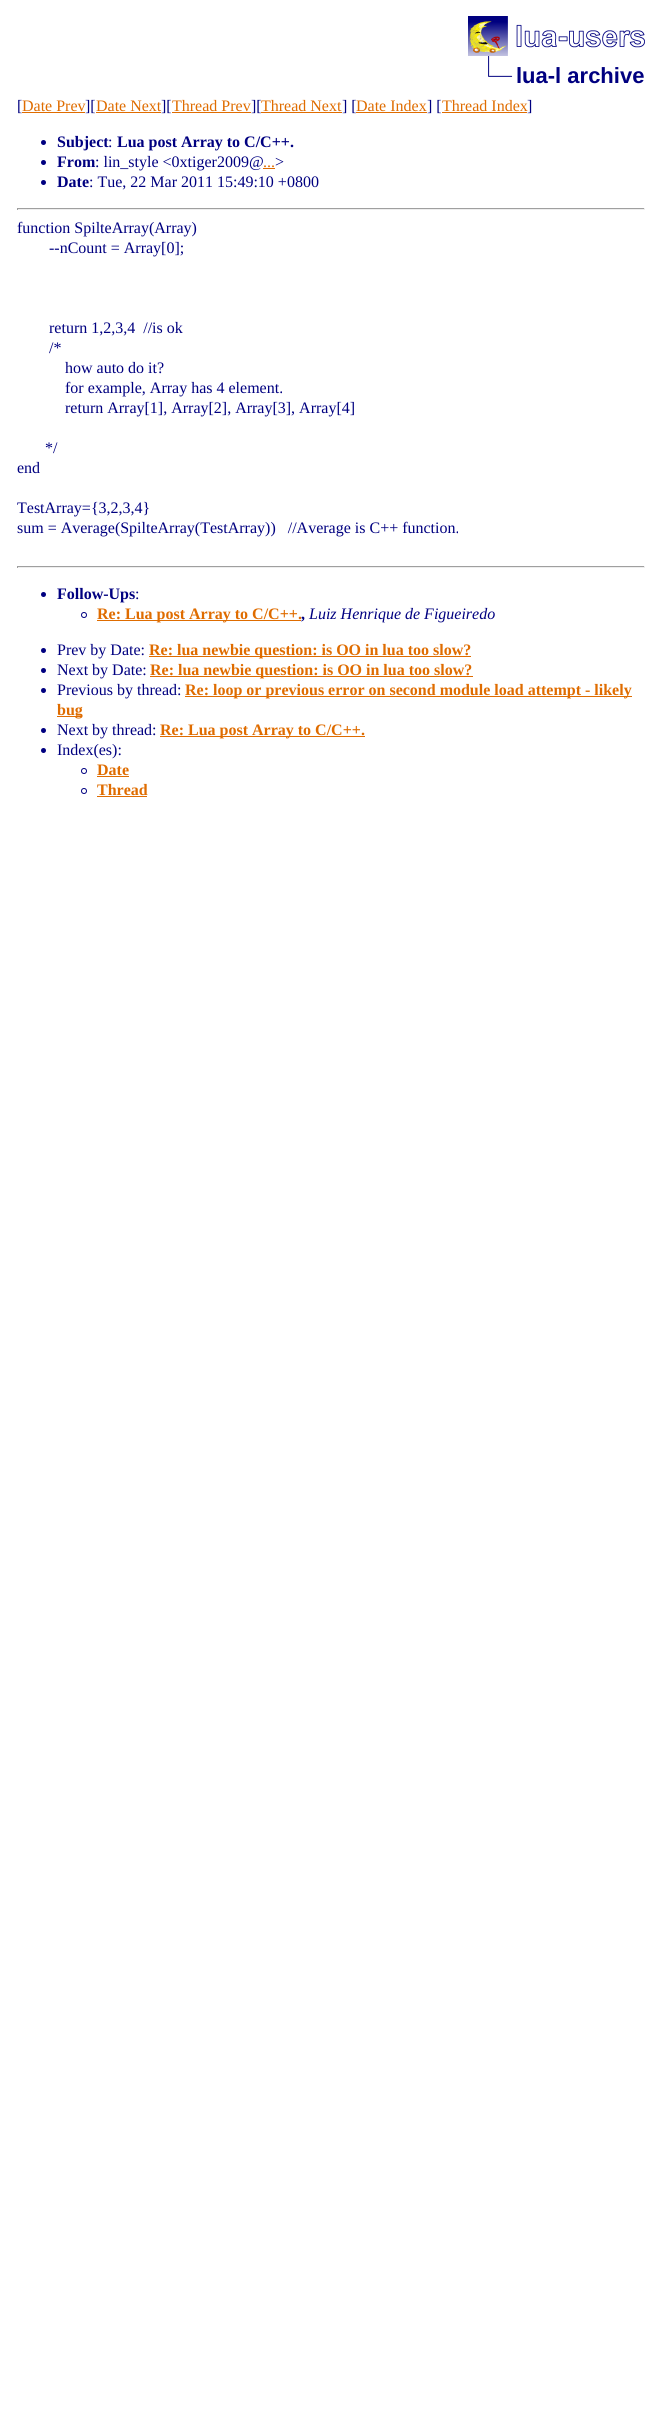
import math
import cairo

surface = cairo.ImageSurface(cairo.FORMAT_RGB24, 662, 2425)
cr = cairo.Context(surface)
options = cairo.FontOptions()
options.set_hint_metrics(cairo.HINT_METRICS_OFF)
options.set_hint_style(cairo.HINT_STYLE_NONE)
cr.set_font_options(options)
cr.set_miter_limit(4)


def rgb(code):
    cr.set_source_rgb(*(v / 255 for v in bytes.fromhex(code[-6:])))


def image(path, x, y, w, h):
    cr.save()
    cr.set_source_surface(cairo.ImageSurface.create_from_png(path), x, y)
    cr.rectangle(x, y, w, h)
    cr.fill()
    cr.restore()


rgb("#ffffff")
cr.paint()
image("img/1.png", 468, 16, 177, 40)
image("img/2.png", 488, 56, 25, 21)
for x, y, w, h, color in [
    (22, 112, 63, 1, "#df6c00"),
    (96, 112, 65, 1, "#df6c00"),
    (172, 112, 79, 1, "#df6c00"),
    (261, 112, 81, 1, "#df6c00"),
    (356, 112, 71, 1, "#df6c00"),
    (442, 112, 85, 1, "#df6c00"),
]:
    rgb(color)
    cr.rectangle(x, y, w, h)
    cr.fill()
rgb("#000080")
cr.arc(43.5, 142.5, 2.5, 0, 2 * math.pi)
cr.fill()
cr.arc(43.5, 162.5, 2.5, 0, 2 * math.pi)
cr.fill()
rgb("#df6c00")
cr.rectangle(263, 168, 12, 1)
cr.fill()
rgb("#000080")
cr.arc(43.5, 182.5, 2.5, 0, 2 * math.pi)
cr.fill()
for x, y, w, h, color in [
    (17, 208, 628, 1, "#9f9f9f"),
    (644, 208, 1, 2, "#eeeeee"),
    (17, 209, 628, 1, "#eeeeee"),
    (17, 208, 1, 2, "#9f9f9f"),
    (17, 566, 628, 1, "#9f9f9f"),
    (644, 566, 1, 2, "#eeeeee"),
    (17, 567, 628, 1, "#eeeeee"),
    (17, 566, 1, 2, "#9f9f9f"),
]:
    rgb(color)
    cr.rectangle(x, y, w, h)
    cr.fill()
rgb("#000080")
cr.arc(43.5, 594.5, 2.5, 0, 2 * math.pi)
cr.fill()
cr.arc(84, 615, 2.5, 0, 2 * math.pi)
cr.set_line_width(1)
cr.stroke()
rgb("#df6c00")
cr.rectangle(97, 620, 204, 1)
cr.fill()
rgb("#000080")
cr.arc(43.5, 650.5, 2.5, 0, 2 * math.pi)
cr.fill()
rgb("#df6c00")
cr.rectangle(149, 656, 322, 1)
cr.fill()
rgb("#000080")
cr.arc(43.5, 670.5, 2.5, 0, 2 * math.pi)
cr.fill()
rgb("#df6c00")
cr.rectangle(150, 676, 323, 1)
cr.fill()
rgb("#000080")
cr.arc(43.5, 690.5, 2.5, 0, 2 * math.pi)
cr.fill()
rgb("#df6c00")
cr.rectangle(185, 696, 447, 1)
cr.fill()
cr.rectangle(57, 716, 25, 1)
cr.fill()
rgb("#000080")
cr.arc(43.5, 730.5, 2.5, 0, 2 * math.pi)
cr.fill()
rgb("#df6c00")
cr.rectangle(160, 736, 205, 1)
cr.fill()
rgb("#000080")
cr.arc(43.5, 750.5, 2.5, 0, 2 * math.pi)
cr.fill()
cr.arc(84, 771, 2.5, 0, 2 * math.pi)
cr.stroke()
rgb("#df6c00")
cr.rectangle(97, 776, 32, 1)
cr.fill()
cr.arc(84, 791, 2.5, 0, 2 * math.pi)
rgb("#000080")
cr.stroke()
rgb("#df6c00")
cr.rectangle(97, 796, 50, 1)
cr.fill()
cr.select_font_face("Liberation Sans", cairo.FONT_SLANT_NORMAL, cairo.FONT_WEIGHT_BOLD)
cr.set_font_size(22)
rgb("#000080")
cr.move_to(516, 83)
cr.show_text("lua-l archive")
cr.select_font_face("Liberation Serif")
cr.set_font_size(16)
cr.move_to(17, 111)
cr.show_text("[")
rgb("#df6c00")
cr.move_to(22, 111)
cr.show_text("Date Prev")
rgb("#000080")
cr.move_to(85, 111)
cr.show_text("][")
rgb("#df6c00")
cr.move_to(96, 111)
cr.show_text("Date Next")
rgb("#000080")
cr.move_to(161, 111)
cr.show_text("][")
rgb("#df6c00")
cr.move_to(172, 111)
cr.show_text("Thread Prev")
rgb("#000080")
cr.move_to(251, 111)
cr.show_text("][")
rgb("#df6c00")
cr.move_to(261, 111)
cr.show_text("Thread Next")
rgb("#000080")
cr.move_to(342, 111)
cr.show_text("] [")
rgb("#df6c00")
cr.move_to(356, 111)
cr.show_text("Date Index")
rgb("#000080")
cr.move_to(427, 111)
cr.show_text("] [")
rgb("#df6c00")
cr.move_to(442, 111)
cr.show_text("Thread Index")
rgb("#000080")
cr.move_to(527, 111)
cr.show_text("]")
cr.select_font_face("Liberation Serif", cairo.FONT_SLANT_NORMAL, cairo.FONT_WEIGHT_BOLD)
cr.move_to(57, 147)
cr.show_text("Subject")
cr.select_font_face("Liberation Serif")
cr.move_to(108, 147)
cr.show_text(":")
cr.select_font_face("Liberation Serif", cairo.FONT_SLANT_NORMAL, cairo.FONT_WEIGHT_BOLD)
cr.move_to(117, 147)
cr.show_text("Lua post Array to C/C++.")
cr.move_to(57, 167)
cr.show_text("From")
cr.select_font_face("Liberation Serif")
cr.move_to(95, 167)
cr.show_text(": lin_style <0xtiger2009@")
cr.move_to(275, 167)
cr.show_text(">")
rgb("#df6c00")
cr.move_to(263, 167)
cr.show_text("...")
cr.select_font_face("Liberation Serif", cairo.FONT_SLANT_NORMAL, cairo.FONT_WEIGHT_BOLD)
rgb("#000080")
cr.move_to(57, 187)
cr.show_text("Date")
cr.select_font_face("Liberation Serif")
for x, y, s in [
    (89, 187, ": Tue, 22 Mar 2011 15:49:10 +0800"),
    (17, 233, "function SpilteArray(Array)"),
    (49, 253, "--nCount = Array[0];"),
    (49, 333, "return 1,2,3,4  //is ok"),
    (49, 353, "/*"),
    (65, 373, "how auto do it?"),
    (65, 393, "for example, Array has 4 element."),
    (65, 413, "return Array[1], Array[2], Array[3], Array[4]"),
    (45, 453, "*/"),
    (17, 473, "end"),
    (17, 513, "TestArray={3,2,3,4}"),
    (17, 533, "sum = Average(SpilteArray(TestArray))   //Average is C++ function."),
]:
    cr.move_to(x, y)
    cr.show_text(s)
cr.select_font_face("Liberation Serif", cairo.FONT_SLANT_NORMAL, cairo.FONT_WEIGHT_BOLD)
cr.move_to(57, 599)
cr.show_text("Follow-Ups")
cr.select_font_face("Liberation Serif")
cr.move_to(135, 599)
cr.show_text(":")
cr.select_font_face("Liberation Serif", cairo.FONT_SLANT_NORMAL, cairo.FONT_WEIGHT_BOLD)
rgb("#df6c00")
cr.move_to(97, 619)
cr.show_text("Re: Lua post Array to C/C++.")
cr.select_font_face("Liberation Serif", cairo.FONT_SLANT_ITALIC)
rgb("#000080")
cr.move_to(309, 619)
cr.show_text("Luiz Henrique de Figueiredo")
cr.select_font_face("Liberation Serif", cairo.FONT_SLANT_NORMAL, cairo.FONT_WEIGHT_BOLD)
cr.move_to(301, 619)
cr.show_text(",")
cr.select_font_face("Liberation Serif")
cr.move_to(57, 655)
cr.show_text("Prev by Date:")
cr.select_font_face("Liberation Serif", cairo.FONT_SLANT_NORMAL, cairo.FONT_WEIGHT_BOLD)
rgb("#df6c00")
cr.move_to(149, 655)
cr.show_text("Re: lua newbie question: is OO in lua too slow?")
cr.select_font_face("Liberation Serif")
rgb("#000080")
cr.move_to(57, 675)
cr.show_text("Next by Date:")
cr.select_font_face("Liberation Serif", cairo.FONT_SLANT_NORMAL, cairo.FONT_WEIGHT_BOLD)
rgb("#df6c00")
cr.move_to(150, 675)
cr.show_text("Re: lua newbie question: is OO in lua too slow?")
cr.select_font_face("Liberation Serif")
rgb("#000080")
cr.move_to(57, 695)
cr.show_text("Previous by thread:")
cr.select_font_face("Liberation Serif", cairo.FONT_SLANT_NORMAL, cairo.FONT_WEIGHT_BOLD)
rgb("#df6c00")
cr.move_to(185, 695)
cr.show_text("Re: loop or previous error on second module load attempt - likely")
cr.move_to(57, 715)
cr.show_text("bug")
cr.select_font_face("Liberation Serif")
rgb("#000080")
cr.move_to(57, 735)
cr.show_text("Next by thread:")
cr.select_font_face("Liberation Serif", cairo.FONT_SLANT_NORMAL, cairo.FONT_WEIGHT_BOLD)
rgb("#df6c00")
cr.move_to(160, 735)
cr.show_text("Re: Lua post Array to C/C++.")
cr.select_font_face("Liberation Serif")
rgb("#000080")
cr.move_to(57, 755)
cr.show_text("Index(es):")
cr.select_font_face("Liberation Serif", cairo.FONT_SLANT_NORMAL, cairo.FONT_WEIGHT_BOLD)
rgb("#df6c00")
cr.move_to(97, 775)
cr.show_text("Date")
cr.move_to(97, 795)
cr.show_text("Thread")
surface.write_to_png("page.png")
